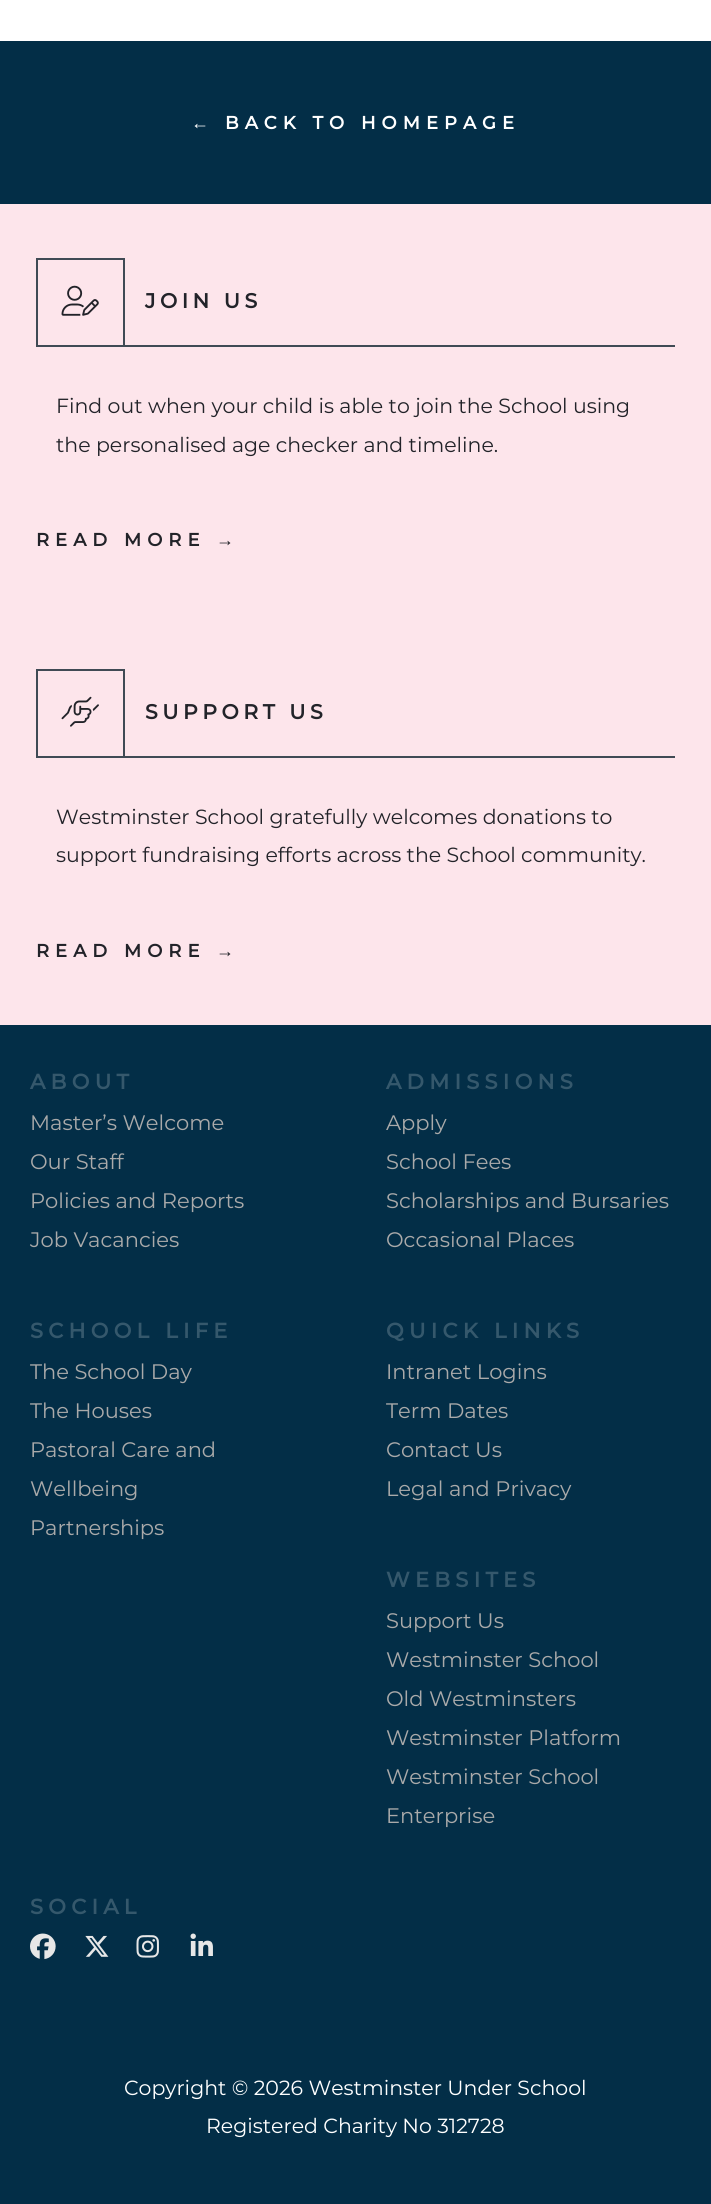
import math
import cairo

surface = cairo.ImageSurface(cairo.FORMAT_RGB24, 711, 2204)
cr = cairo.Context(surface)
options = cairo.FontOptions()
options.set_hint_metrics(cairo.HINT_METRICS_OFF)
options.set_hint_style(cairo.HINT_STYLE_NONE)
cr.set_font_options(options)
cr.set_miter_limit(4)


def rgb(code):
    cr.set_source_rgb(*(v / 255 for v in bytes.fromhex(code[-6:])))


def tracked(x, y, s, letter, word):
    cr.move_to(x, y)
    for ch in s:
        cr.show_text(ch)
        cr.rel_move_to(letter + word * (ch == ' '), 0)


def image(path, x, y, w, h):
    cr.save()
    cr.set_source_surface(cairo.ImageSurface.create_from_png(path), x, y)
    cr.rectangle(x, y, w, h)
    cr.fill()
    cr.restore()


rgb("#ffffff")
cr.paint()
rgb("#032e47")
cr.rectangle(0, 41, 711, 163)
cr.fill()
rgb("#fde5eb")
cr.rectangle(0, 204, 711, 821)
cr.fill()
cr.rectangle(37, 259, 87, 87)
rgb("#404a54")
cr.stroke()
image("img/1.png", 61, 285, 38, 31)
cr.rectangle(125, 345, 550, 2)
cr.fill()
cr.rectangle(37, 670, 87, 87)
cr.stroke()
image("img/2.png", 61, 696, 38, 31)
cr.rectangle(125, 756, 550, 2)
cr.fill()
rgb("#032e47")
cr.rectangle(0, 1025, 711, 1179)
cr.fill()
image("img/3.png", 30, 1933, 26, 27)
image("img/4.png", 85, 1935, 24, 22)
image("img/5.png", 136, 1935, 23, 23)
image("img/6.png", 190, 1933, 23, 23)
cr.select_font_face("Liberation Sans", cairo.FONT_SLANT_NORMAL, cairo.FONT_WEIGHT_BOLD)
cr.set_font_size(18)
rgb("#ffffff")
tracked(191, 129, "←", 6, 0)
cr.select_font_face("Montserrat", cairo.FONT_SLANT_NORMAL, cairo.FONT_WEIGHT_BOLD)
tracked(225, 129, "BACK TO HOMEPAGE", 6, 0)
cr.set_font_size(20.5)
rgb("#222329")
tracked(145, 308, "JOIN US", 4.5, 0)
cr.select_font_face("Montserrat")
cr.move_to(56, 413)
cr.show_text("Find out when your child is able to join the School using")
cr.move_to(56, 452)
cr.show_text("the personalised age checker and timeline.")
cr.select_font_face("Montserrat", cairo.FONT_SLANT_NORMAL, cairo.FONT_WEIGHT_BOLD)
cr.set_font_size(18)
tracked(36, 546, "READ MORE", 6, 0)
cr.select_font_face("Liberation Sans", cairo.FONT_SLANT_NORMAL, cairo.FONT_WEIGHT_BOLD)
tracked(216, 546, "→", 6, 0)
cr.select_font_face("Montserrat", cairo.FONT_SLANT_NORMAL, cairo.FONT_WEIGHT_BOLD)
cr.set_font_size(20.5)
tracked(145, 719, "SUPPORT US", 4.5, 0)
cr.select_font_face("Montserrat")
cr.move_to(56, 824)
cr.show_text("Westminster School gratefully welcomes donations to")
cr.move_to(56, 862)
cr.show_text("support fundraising efforts across the School community.")
cr.select_font_face("Montserrat", cairo.FONT_SLANT_NORMAL, cairo.FONT_WEIGHT_BOLD)
cr.set_font_size(18)
tracked(36, 957, "READ MORE", 6, 0)
cr.select_font_face("Liberation Sans", cairo.FONT_SLANT_NORMAL, cairo.FONT_WEIGHT_BOLD)
tracked(216, 957, "→", 6, 0)
cr.select_font_face("Montserrat", cairo.FONT_SLANT_NORMAL, cairo.FONT_WEIGHT_BOLD)
cr.set_font_size(21)
rgb("#35586c")
tracked(30, 1089, "ABOUT", 5.25, 0)
cr.select_font_face("Montserrat")
rgb("#aaaaaa")
for x, y, s in [
    (30, 1130, "Master’s Welcome"),
    (30, 1169, "Our Staff"),
    (30, 1208, "Policies and Reports"),
    (30, 1247, "Job Vacancies"),
]:
    cr.move_to(x, y)
    cr.show_text(s)
cr.select_font_face("Montserrat", cairo.FONT_SLANT_NORMAL, cairo.FONT_WEIGHT_BOLD)
rgb("#35586c")
tracked(386, 1089, "ADMISSIONS", 5.25, 0)
cr.select_font_face("Montserrat")
rgb("#aaaaaa")
for x, y, s in [
    (386, 1130, "Apply"),
    (386, 1169, "School Fees"),
    (386, 1208, "Scholarships and Bursaries"),
    (386, 1247, "Occasional Places"),
]:
    cr.move_to(x, y)
    cr.show_text(s)
cr.select_font_face("Montserrat", cairo.FONT_SLANT_NORMAL, cairo.FONT_WEIGHT_BOLD)
rgb("#35586c")
tracked(30, 1338, "SCHOOL LIFE", 5.25, 0)
cr.select_font_face("Montserrat")
rgb("#aaaaaa")
for x, y, s in [
    (30, 1379, "The School Day"),
    (30, 1418, "The Houses"),
    (30, 1457, "Pastoral Care and"),
    (30, 1496, "Wellbeing"),
    (30, 1535, "Partnerships"),
]:
    cr.move_to(x, y)
    cr.show_text(s)
cr.select_font_face("Montserrat", cairo.FONT_SLANT_NORMAL, cairo.FONT_WEIGHT_BOLD)
rgb("#35586c")
tracked(386, 1338, "QUICK LINKS", 5.25, 0)
cr.select_font_face("Montserrat")
rgb("#aaaaaa")
for x, y, s in [
    (386, 1379, "Intranet Logins"),
    (386, 1418, "Term Dates"),
    (386, 1457, "Contact Us"),
    (386, 1496, "Legal and Privacy"),
]:
    cr.move_to(x, y)
    cr.show_text(s)
cr.select_font_face("Montserrat", cairo.FONT_SLANT_NORMAL, cairo.FONT_WEIGHT_BOLD)
rgb("#35586c")
tracked(386, 1587, "WEBSITES", 5.25, 0)
cr.select_font_face("Montserrat")
rgb("#aaaaaa")
for x, y, s in [
    (386, 1628, "Support Us"),
    (386, 1667, "Westminster School"),
    (386, 1706, "Old Westminsters"),
    (386, 1745, "Westminster Platform"),
    (386, 1784, "Westminster School"),
    (386, 1823, "Enterprise"),
]:
    cr.move_to(x, y)
    cr.show_text(s)
cr.select_font_face("Montserrat", cairo.FONT_SLANT_NORMAL, cairo.FONT_WEIGHT_BOLD)
rgb("#35586c")
tracked(30, 1914, "SOCIAL", 5.25, 0)
cr.select_font_face("Montserrat")
cr.set_font_size(20.5)
rgb("#ffffff")
cr.move_to(124, 2095)
cr.show_text("Copyright © 2026 Westminster Under School")
cr.move_to(206, 2133)
cr.show_text("Registered Charity No 312728")
surface.write_to_png("page.png")
